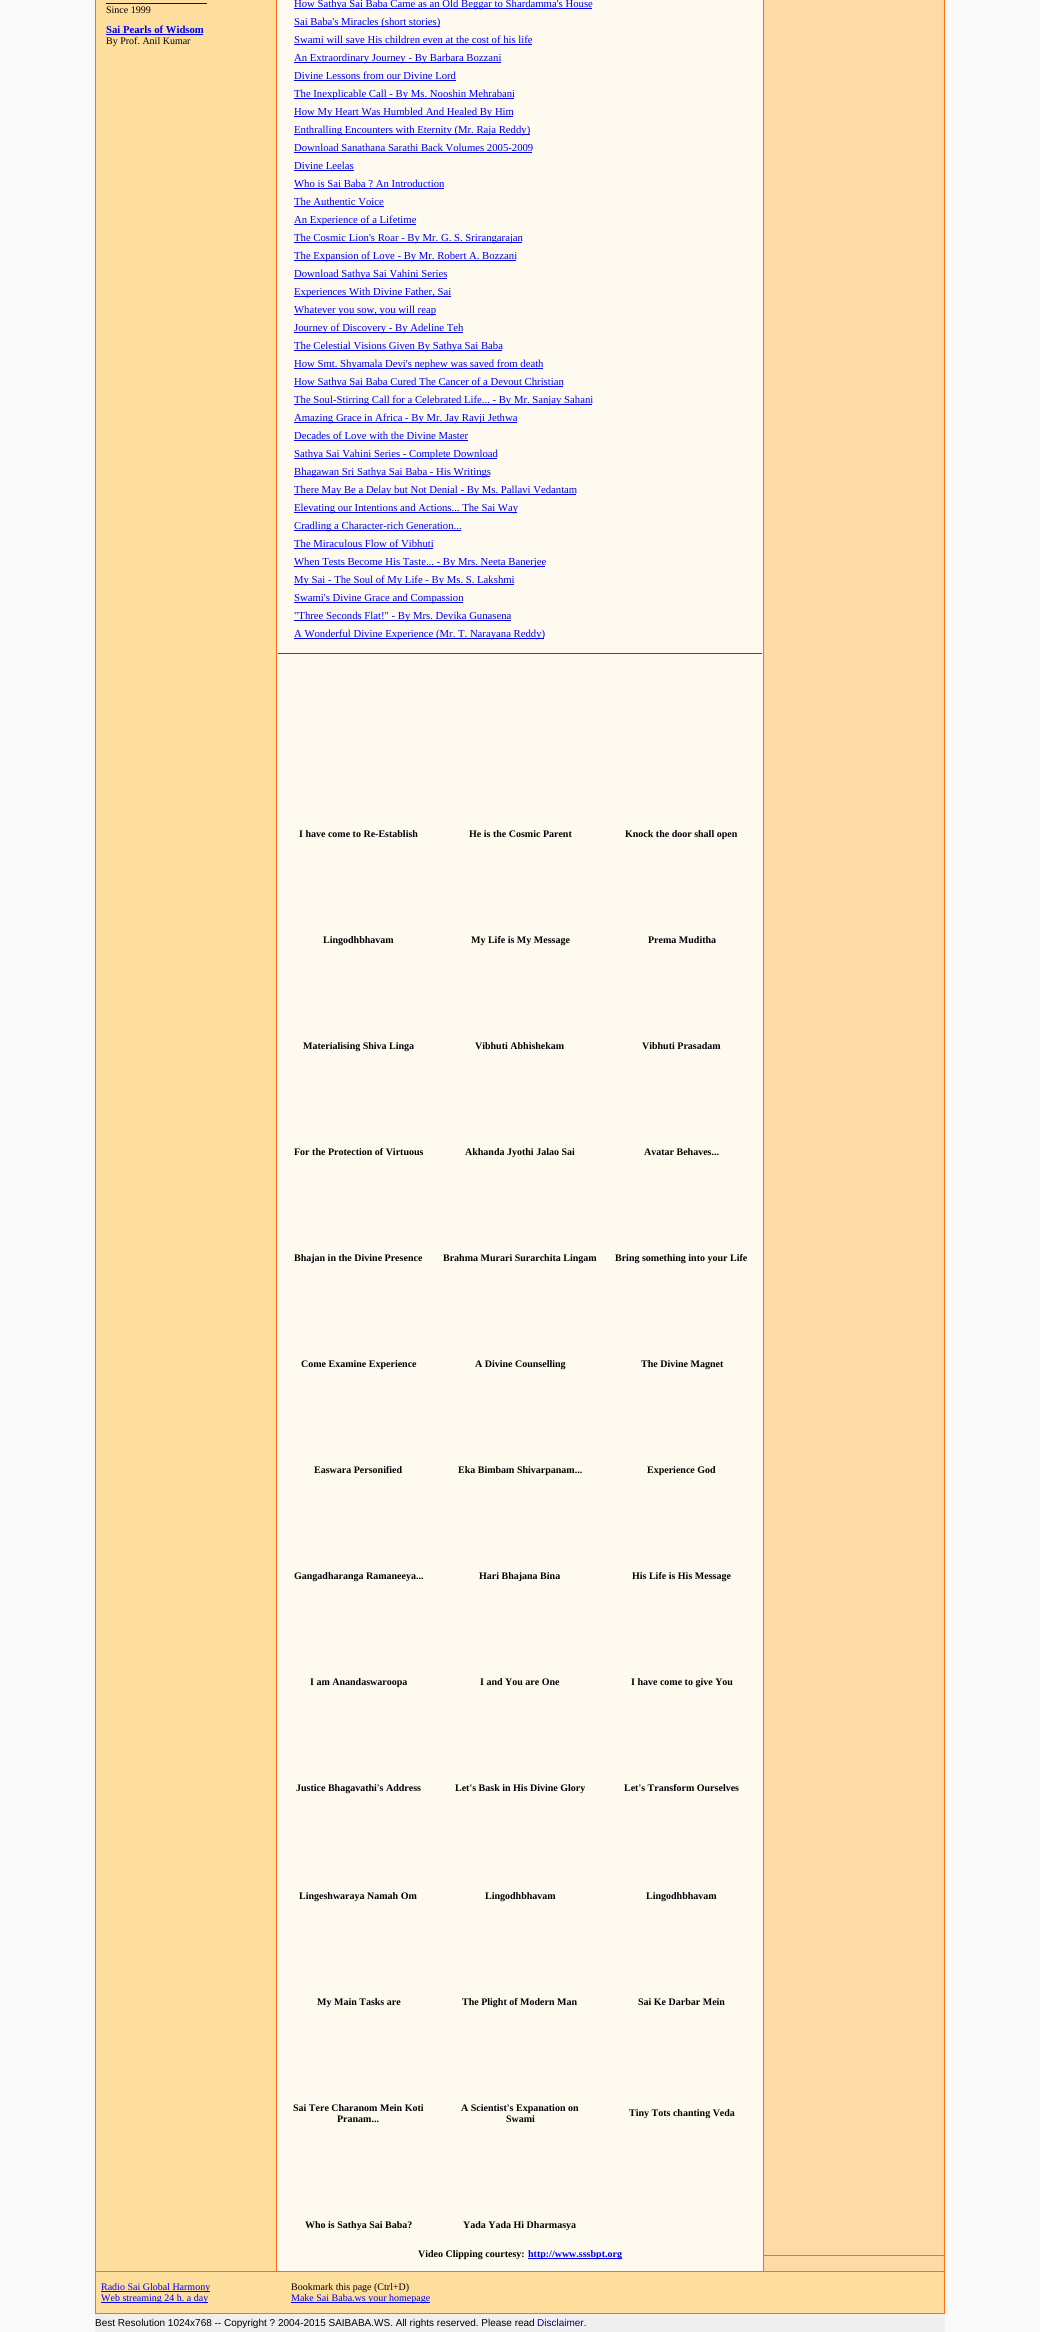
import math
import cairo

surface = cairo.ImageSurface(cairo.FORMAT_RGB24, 1040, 2332)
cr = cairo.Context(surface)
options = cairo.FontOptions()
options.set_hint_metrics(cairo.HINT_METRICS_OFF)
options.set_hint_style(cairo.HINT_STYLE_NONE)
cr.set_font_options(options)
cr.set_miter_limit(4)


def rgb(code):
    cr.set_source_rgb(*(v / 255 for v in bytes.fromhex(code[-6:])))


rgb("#f9f9f9")
cr.paint()
for x, y, w, h, color in [
    (944, 0, 1, 2314, "#ff6d15"),
    (95, 2313, 850, 1, "#ff6d15"),
    (95, 0, 1, 2314, "#ff6d15"),
    (96, 0, 180, 2271, "#fdde9d"),
    (106, 3, 101, 1, "#0000ee"),
    (106, 34, 97, 1, "#0000ee"),
    (277, 0, 486, 2271, "#fffaf0"),
    (95, 2271, 850, 1, "#ff6d15"),
    (276, 0, 1, 2272, "#ff6d15"),
    (294, 8, 298, 1, "#0000ee"),
    (294, 26, 146, 1, "#0000ee"),
    (294, 44, 238, 1, "#0000ee"),
    (294, 62, 207, 1, "#0000ee"),
    (294, 80, 162, 1, "#0000ee"),
    (294, 98, 220, 1, "#0000ee"),
    (294, 116, 219, 1, "#0000ee"),
    (294, 134, 236, 1, "#0000ee"),
    (294, 152, 238, 1, "#0000ee"),
    (294, 170, 60, 1, "#0000ee"),
    (294, 188, 150, 1, "#0000ee"),
    (294, 206, 90, 1, "#0000ee"),
    (294, 224, 122, 1, "#0000ee"),
    (294, 242, 228, 1, "#0000ee"),
    (294, 260, 222, 1, "#0000ee"),
    (294, 278, 153, 1, "#0000ee"),
    (294, 296, 157, 1, "#0000ee"),
    (294, 314, 142, 1, "#0000ee"),
    (294, 332, 169, 1, "#0000ee"),
    (294, 350, 208, 1, "#0000ee"),
    (294, 368, 249, 1, "#0000ee"),
    (294, 386, 269, 1, "#0000ee"),
    (294, 404, 298, 1, "#0000ee"),
    (294, 422, 223, 1, "#0000ee"),
    (294, 440, 174, 1, "#0000ee"),
    (294, 458, 203, 1, "#0000ee"),
    (294, 476, 196, 1, "#0000ee"),
    (294, 494, 282, 1, "#0000ee"),
    (294, 512, 223, 1, "#0000ee"),
    (294, 530, 167, 1, "#0000ee"),
    (294, 548, 139, 1, "#0000ee"),
    (294, 566, 251, 1, "#0000ee"),
    (294, 584, 220, 1, "#0000ee"),
    (294, 602, 169, 1, "#0000ee"),
    (294, 620, 217, 1, "#0000ee"),
    (294, 638, 250, 1, "#0000ee"),
    (278, 653, 484, 1, "#ff0000"),
    (528, 2258, 94, 1, "#0000ee"),
    (764, 0, 180, 2255, "#fedaa9"),
    (764, 2256, 180, 15, "#fedaa9"),
    (763, 2255, 182, 1, "#ff6d15"),
    (763, 0, 1, 2272, "#ff6d15"),
    (96, 2272, 848, 41, "#fdde9d"),
    (101, 2291, 109, 1, "#0000ee"),
    (101, 2302, 107, 1, "#0000ee"),
    (291, 2302, 139, 1, "#0000ee"),
    (95, 2314, 850, 18, "#efefef"),
]:
    rgb(color)
    cr.rectangle(x, y, w, h)
    cr.fill()
cr.select_font_face("Liberation Serif")
cr.set_font_size(10)
rgb("#000000")
cr.move_to(106, 13)
cr.show_text("Since 1999")
cr.select_font_face("Liberation Serif", cairo.FONT_SLANT_NORMAL, cairo.FONT_WEIGHT_BOLD)
cr.set_font_size(10.7)
rgb("#0000ee")
cr.move_to(106, 33)
cr.show_text("Sai Pearls of Widsom")
cr.select_font_face("Liberation Serif")
cr.set_font_size(10)
rgb("#000000")
cr.move_to(106, 44)
cr.show_text("By Prof. Anil Kumar")
cr.set_font_size(10.7)
rgb("#0000ee")
for x, y, s in [
    (294, 7, "How Sathya Sai Baba Came as an Old Beggar to Shardamma's House"),
    (294, 25, "Sai Baba's Miracles (short stories)"),
    (294, 43, "Swami will save His children even at the cost of his life"),
    (294, 61, "An Extraordinary Journey - By Barbara Bozzani"),
    (294, 79, "Divine Lessons from our Divine Lord"),
    (294, 97, "The Inexplicable Call - By Ms. Nooshin Mehrabani"),
    (294, 115, "How My Heart Was Humbled And Healed By Him"),
    (294, 133, "Enthralling Encounters with Eternity (Mr. Raja Reddy)"),
    (294, 151, "Download Sanathana Sarathi Back Volumes 2005-2009"),
    (294, 169, "Divine Leelas"),
    (294, 187, "Who is Sai Baba ? An Introduction"),
    (294, 205, "The Authentic Voice"),
    (294, 223, "An Experience of a Lifetime"),
    (294, 241, "The Cosmic Lion's Roar - By Mr. G. S. Srirangarajan"),
    (294, 259, "The Expansion of Love - By Mr. Robert A. Bozzani"),
    (294, 277, "Download Sathya Sai Vahini Series"),
    (294, 295, "Experiences With Divine Father, Sai"),
    (294, 313, "Whatever you sow, you will reap"),
    (294, 331, "Journey of Discovery - By Adeline Teh"),
    (294, 349, "The Celestial Visions Given By Sathya Sai Baba"),
    (294, 367, "How Smt. Shyamala Devi's nephew was saved from death"),
    (294, 385, "How Sathya Sai Baba Cured The Cancer of a Devout Christian"),
    (294, 403, "The Soul-Stirring Call for a Celebrated Life... - By Mr. Sanjay Sahani"),
    (294, 421, "Amazing Grace in Africa - By Mr. Jay Ravji Jethwa"),
    (294, 439, "Decades of Love with the Divine Master"),
    (294, 457, "Sathya Sai Vahini Series - Complete Download"),
    (294, 475, "Bhagawan Sri Sathya Sai Baba - His Writings"),
    (294, 493, "There May Be a Delay but Not Denial - By Ms. Pallavi Vedantam"),
    (294, 511, "Elevating our Intentions and Actions... The Sai Way"),
    (294, 529, "Cradling a Character-rich Generation..."),
    (294, 547, "The Miraculous Flow of Vibhuti"),
    (294, 565, "When Tests Become His Taste... - By Mrs. Neeta Banerjee"),
    (294, 583, "My Sai - The Soul of My Life - By Ms. S. Lakshmi"),
    (294, 601, "Swami's Divine Grace and Compassion"),
    (294, 619, "\"Three Seconds Flat!\" - By Mrs. Devika Gunasena"),
    (294, 637, "A Wonderful Divine Experience (Mr. T. Narayana Reddy)"),
]:
    cr.move_to(x, y)
    cr.show_text(s)
cr.select_font_face("Liberation Serif", cairo.FONT_SLANT_NORMAL, cairo.FONT_WEIGHT_BOLD)
cr.set_font_size(10)
rgb("#000000")
for x, y, s in [
    (299, 837, "I have come to Re-Establish"),
    (469, 837, "He is the Cosmic Parent"),
    (625, 837, "Knock the door shall open"),
    (323, 943, "Lingodhbhavam"),
    (471, 943, "My Life is My Message"),
    (648, 943, "Prema Muditha"),
    (303, 1049, "Materialising Shiva Linga"),
    (475, 1049, "Vibhuti Abhishekam"),
    (642, 1049, "Vibhuti Prasadam"),
    (294, 1155, "For the Protection of Virtuous"),
    (465, 1155, "Akhanda Jyothi Jalao Sai"),
    (644, 1155, "Avatar Behaves..."),
    (294, 1261, "Bhajan in the Divine Presence"),
    (443, 1261, "Brahma Murari Surarchita Lingam"),
    (615, 1261, "Bring something into your Life"),
    (301, 1367, "Come Examine Experience"),
    (475, 1367, "A Divine Counselling"),
    (641, 1367, "The Divine Magnet"),
    (314, 1473, "Easwara Personified"),
    (458, 1473, "Eka Bimbam Shivarpanam..."),
    (647, 1473, "Experience God"),
    (294, 1579, "Gangadharanga Ramaneeya..."),
    (479, 1579, "Hari Bhajana Bina"),
    (632, 1579, "His Life is His Message"),
    (310, 1685, "I am Anandaswaroopa"),
    (480, 1685, "I and You are One"),
    (631, 1685, "I have come to give You"),
    (296, 1791, "Justice Bhagavathi's Address"),
    (455, 1791, "Let's Bask in His Divine Glory"),
    (624, 1791, "Let's Transform Ourselves"),
    (299, 1899, "Lingeshwaraya Namah Om"),
    (485, 1899, "Lingodhbhavam"),
    (646, 1899, "Lingodhbhavam"),
    (317, 2005, "My Main Tasks are"),
    (462, 2005, "The Plight of Modern Man"),
    (638, 2005, "Sai Ke Darbar Mein"),
    (293, 2111, "Sai Tere Charanom Mein Koti"),
    (337, 2122, "Pranam..."),
    (461, 2111, "A Scientist's Expanation on"),
    (506, 2122, "Swami"),
    (629, 2116, "Tiny Tots chanting Veda"),
    (305, 2228, "Who is Sathya Sai Baba?"),
    (463, 2228, "Yada Yada Hi Dharmasya"),
    (418, 2257, "Video Clipping courtesy:"),
]:
    cr.move_to(x, y)
    cr.show_text(s)
rgb("#0000ee")
cr.move_to(528, 2257)
cr.show_text("http://www.sssbpt.org")
cr.select_font_face("Liberation Serif")
cr.move_to(101, 2290)
cr.show_text("Radio Sai Global Harmony")
cr.move_to(101, 2301)
cr.show_text("Web streaming 24 h. a day")
rgb("#000000")
cr.move_to(291, 2290)
cr.show_text("Bookmark this page (Ctrl+D)")
rgb("#0000ee")
cr.move_to(291, 2301)
cr.show_text("Make Sai Baba.ws your homepage")
cr.select_font_face("Liberation Sans")
rgb("#000000")
cr.move_to(95, 2326)
cr.show_text("Best Resolution 1024x768 -- Copyright ? 2004-2015 SAIBABA.WS. All rights reserved. Please read")
rgb("#000080")
cr.move_to(537, 2326)
cr.show_text("Disclaimer.")
surface.write_to_png("page.png")
